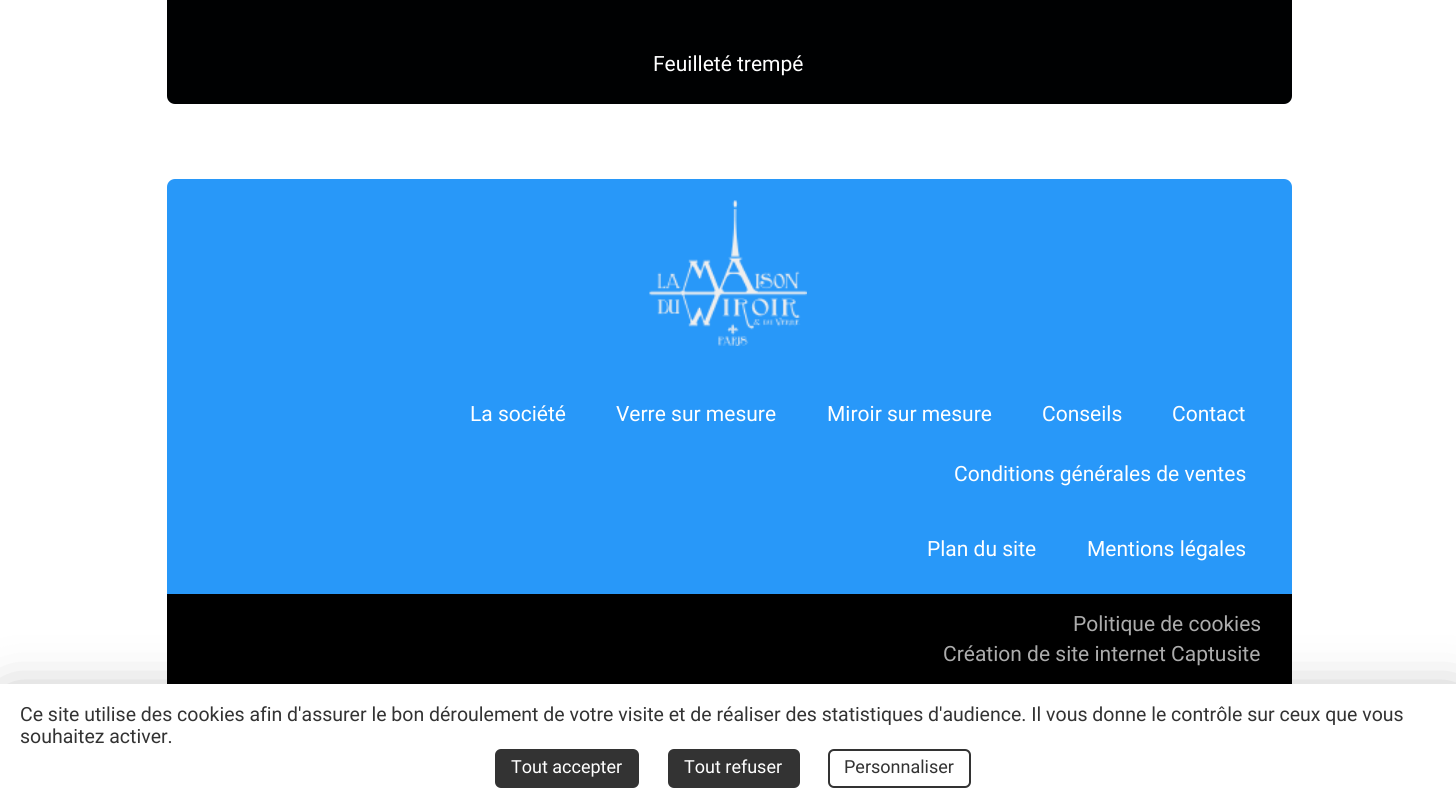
import math
import cairo

surface = cairo.ImageSurface(cairo.FORMAT_RGB24, 1456, 802)
cr = cairo.Context(surface)
options = cairo.FontOptions()
options.set_hint_metrics(cairo.HINT_METRICS_OFF)
options.set_hint_style(cairo.HINT_STYLE_NONE)
cr.set_font_options(options)
cr.set_miter_limit(4)


def rgb(code):
    cr.set_source_rgb(*(v / 255 for v in bytes.fromhex(code[-6:])))


def rrect(x, y, w, h, r):
    cr.new_sub_path()
    for i, (u, v) in enumerate([(x + w - r, y + h - r), (x + r, y + h - r), (x + r, y + r), (x + w - r, y + r)]):
        cr.arc(u, v, r, i * math.pi / 2, (i + 1) * math.pi / 2)
    cr.close_path()


def soft_shadow(x, y, w, h, r, blur, alpha):
    cr.push_group_with_content(cairo.CONTENT_ALPHA)
    cr.set_operator(cairo.OPERATOR_SOURCE)
    for i in range(15, -16, -2):
        e = blur * i / 6
        if min(w, h) + 2 * e > 0:
            cr.set_source_rgba(0, 0, 0, alpha * math.erfc((i - 1) / 8.5) / 2)
            rrect(x - e, y - e, w + 2 * e, h + 2 * e, max(0, min(r + e + blur * .6, min(w, h) / 2 + e)))
            cr.fill()
    cr.mask(cr.pop_group())


def image(path, x, y, w, h):
    cr.save()
    cr.set_source_surface(cairo.ImageSurface.create_from_png(path), x, y)
    cr.rectangle(x, y, w, h)
    cr.fill()
    cr.restore()


rgb("#ffffff")
cr.paint()
rgb("#000102")
rrect(167, -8, 1125, 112, 8)
cr.fill()
rgb("#2898f9")
rrect(167, 179, 1125, 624, 8)
cr.fill()
image("img/1.png", 649, 200, 158, 146)
rgb("#000000")
cr.rectangle(167, 594, 1125, 90)
cr.fill()
rgb("#000000")
soft_shadow(9, 702, 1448, 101, 0, 27, 0.4)
rgb("#ffffff")
cr.rectangle(0, 684, 1456, 118)
cr.fill()
rgb("#333333")
rrect(496, 750, 142, 37, 5)
cr.fill_preserve()
cr.stroke()
rrect(669, 750, 130, 37, 5)
cr.fill_preserve()
cr.stroke()
rrect(829, 750, 141, 37, 5)
cr.stroke()
cr.select_font_face("Roboto")
cr.set_font_size(21)
rgb("#ffffff")
for x, y, s in [
    (653, 71, "Feuilleté trempé"),
    (470, 421, "La société"),
    (616, 421, "Verre sur mesure"),
    (827, 421, "Miroir sur mesure"),
    (1042, 421, "Conseils"),
    (1172, 421, "Contact"),
    (954, 481, "Conditions générales de ventes"),
    (927, 556, "Plan du site"),
    (1087, 556, "Mentions légales"),
]:
    cr.move_to(x, y)
    cr.show_text(s)
rgb("#acacac")
cr.move_to(1073, 631)
cr.show_text("Politique de cookies")
cr.move_to(943, 661)
cr.show_text("Création de site internet Captusite")
cr.set_font_size(19.5)
rgb("#333333")
cr.move_to(20, 721)
cr.show_text("Ce site utilise des cookies afin d'assurer le bon déroulement de votre visite et de réaliser des statistiques d'audience. Il vous donne le contrôle sur ceux que vous")
cr.move_to(20, 743)
cr.show_text("souhaitez activer.")
cr.set_font_size(18)
rgb("#ffffff")
cr.move_to(511, 773)
cr.show_text("Tout accepter")
cr.move_to(684, 773)
cr.show_text("Tout refuser")
rgb("#333333")
cr.move_to(844, 773)
cr.show_text("Personnaliser")
surface.write_to_png("page.png")
